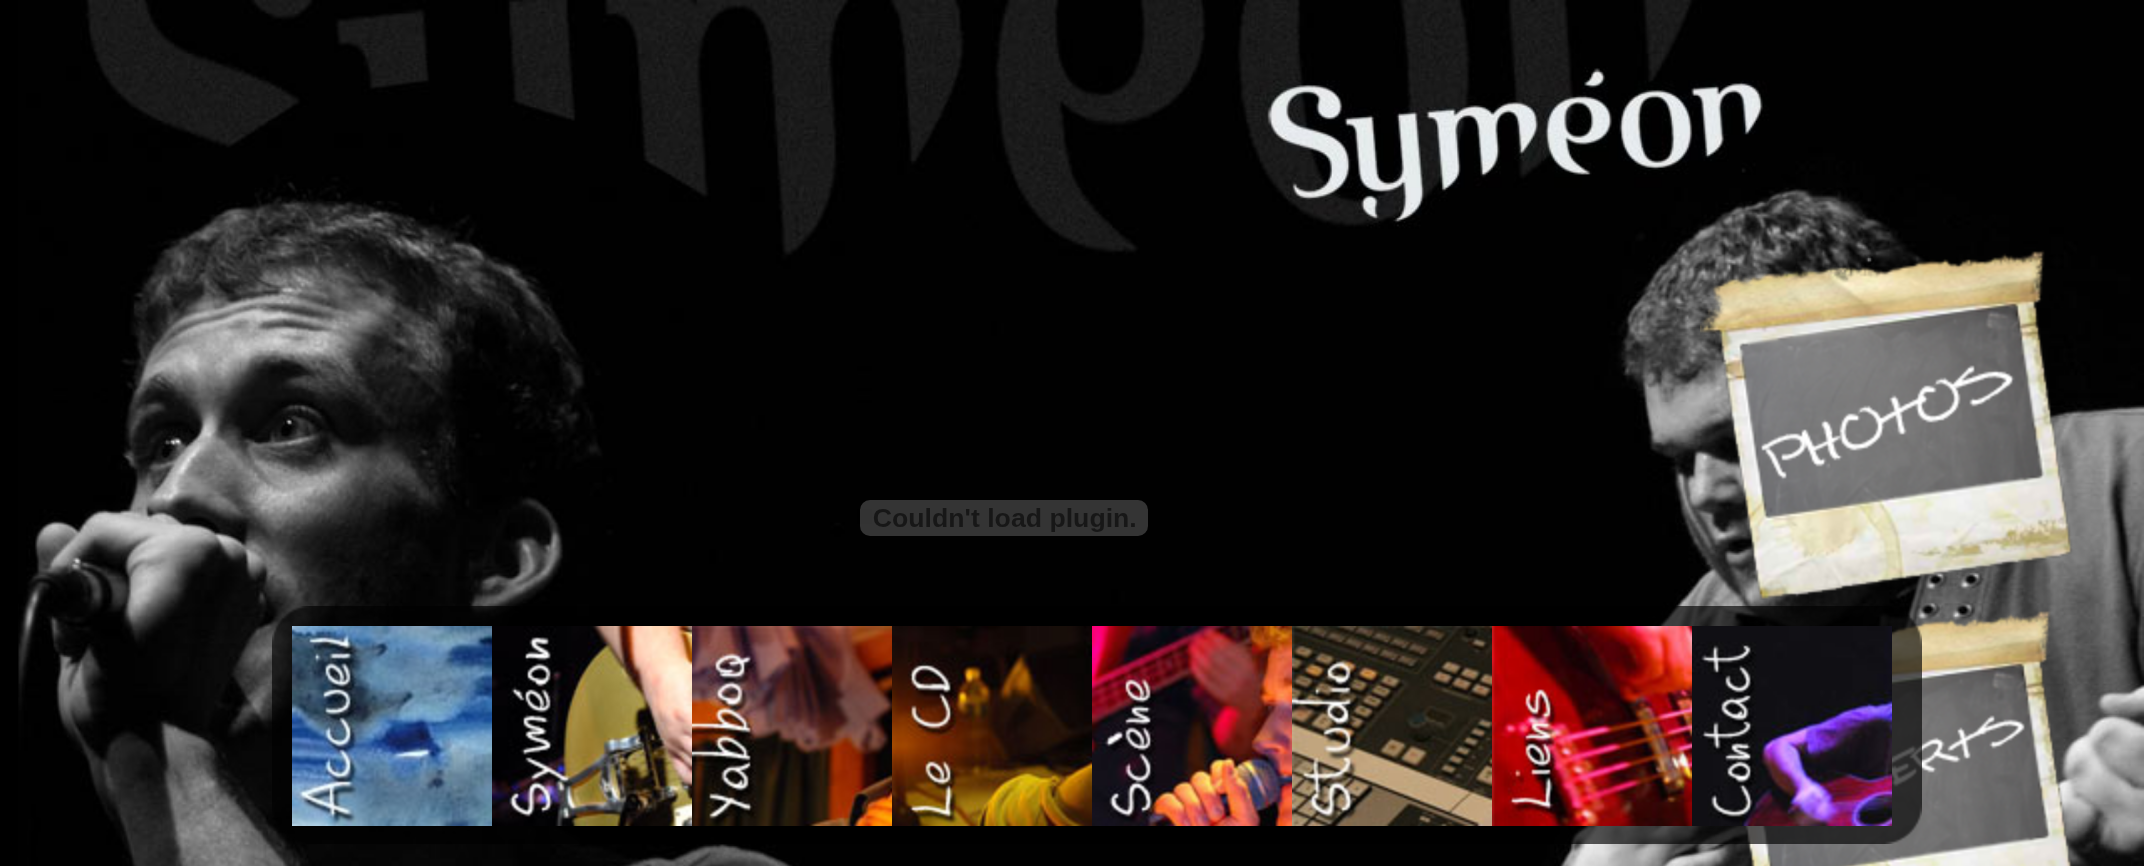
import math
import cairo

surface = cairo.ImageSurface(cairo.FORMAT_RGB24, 2144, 866)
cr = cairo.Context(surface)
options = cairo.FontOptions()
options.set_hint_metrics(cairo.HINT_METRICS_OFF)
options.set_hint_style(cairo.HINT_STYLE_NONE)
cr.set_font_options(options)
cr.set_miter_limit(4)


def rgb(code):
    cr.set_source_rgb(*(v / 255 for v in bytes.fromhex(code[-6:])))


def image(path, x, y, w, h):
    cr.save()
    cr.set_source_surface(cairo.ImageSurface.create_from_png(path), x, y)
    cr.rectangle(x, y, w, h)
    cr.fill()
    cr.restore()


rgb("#000000")
cr.paint()
image("img/1.png", 18, 0, 2126, 866)
image("img/2.png", 860, 500, 288, 36)
image("img/3.png", 1700, 250, 373, 350)
image("img/13.png", 1743, 611, 330, 255)
image("img/4.png", 272, 606, 1650, 238)
image("img/5.png", 292, 626, 200, 200)
image("img/6.png", 492, 626, 200, 200)
image("img/7.png", 692, 626, 200, 200)
image("img/8.png", 892, 626, 200, 200)
image("img/9.png", 1092, 626, 200, 200)
image("img/10.png", 1292, 626, 200, 200)
image("img/11.png", 1492, 626, 200, 200)
image("img/12.png", 1692, 626, 200, 200)
surface.write_to_png("page.png")
